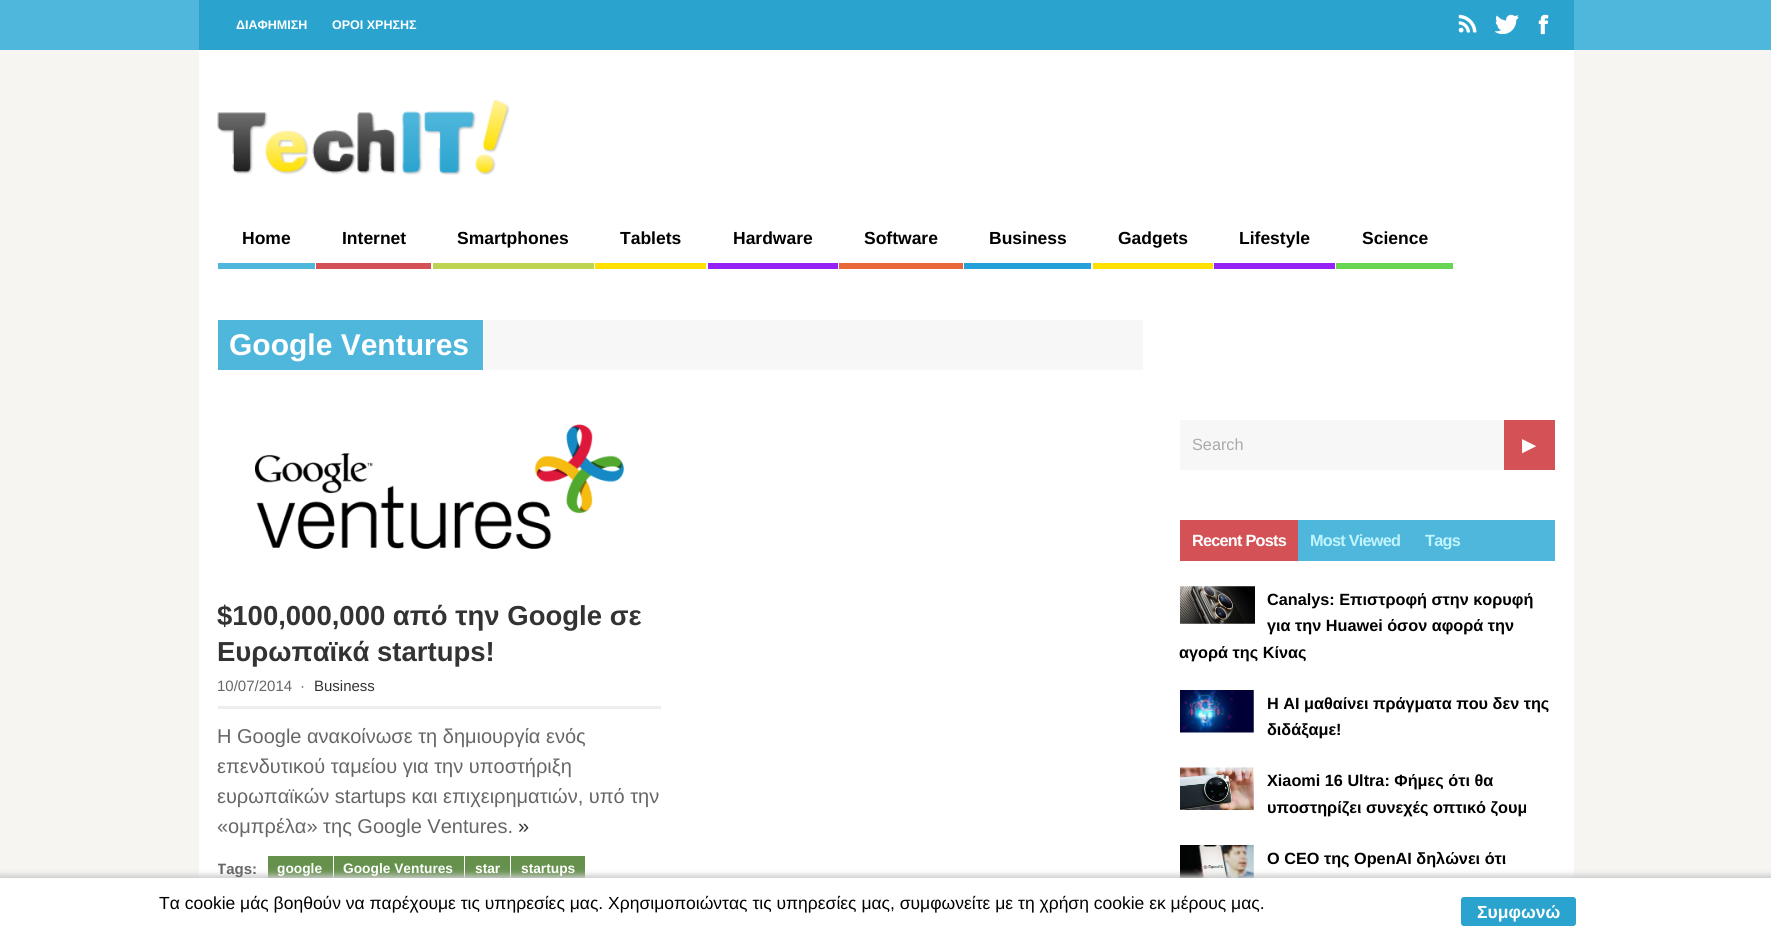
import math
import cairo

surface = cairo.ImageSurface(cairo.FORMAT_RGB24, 1771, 943)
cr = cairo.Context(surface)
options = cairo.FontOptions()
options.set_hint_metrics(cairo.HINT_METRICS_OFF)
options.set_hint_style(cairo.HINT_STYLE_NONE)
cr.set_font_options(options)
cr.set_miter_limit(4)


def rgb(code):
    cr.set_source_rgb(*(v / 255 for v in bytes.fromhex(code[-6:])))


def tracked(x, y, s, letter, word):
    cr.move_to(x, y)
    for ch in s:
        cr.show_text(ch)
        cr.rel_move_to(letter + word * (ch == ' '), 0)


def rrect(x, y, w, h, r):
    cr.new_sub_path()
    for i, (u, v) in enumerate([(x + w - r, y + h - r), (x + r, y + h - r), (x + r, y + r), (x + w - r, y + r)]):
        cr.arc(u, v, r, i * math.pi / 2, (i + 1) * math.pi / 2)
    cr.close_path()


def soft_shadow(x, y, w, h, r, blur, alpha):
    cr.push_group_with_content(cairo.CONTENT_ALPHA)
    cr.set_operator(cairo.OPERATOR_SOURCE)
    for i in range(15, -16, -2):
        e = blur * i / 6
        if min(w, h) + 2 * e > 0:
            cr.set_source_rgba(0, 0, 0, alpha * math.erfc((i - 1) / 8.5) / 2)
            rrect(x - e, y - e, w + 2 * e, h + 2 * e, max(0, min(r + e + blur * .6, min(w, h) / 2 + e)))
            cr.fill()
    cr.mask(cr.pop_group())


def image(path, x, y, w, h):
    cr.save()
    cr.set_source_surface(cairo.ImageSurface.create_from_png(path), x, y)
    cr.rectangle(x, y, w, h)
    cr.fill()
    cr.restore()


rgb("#f6f5f2")
cr.paint()
rgb("#50b7dc")
cr.rectangle(0, 0, 1771, 50)
cr.fill()
rgb("#2aa4cf")
cr.rectangle(199, 0, 1375, 50)
cr.fill()
image("img/1.png", 1458, 14, 19, 19)
image("img/2.png", 1495, 14, 24, 21)
image("img/3.png", 1538, 14, 11, 21)
rgb("#ffffff")
cr.rectangle(199, 50, 1375, 828)
cr.fill()
image("img/4.png", 217, 100, 293, 75)
for x, y, w, h, color in [
    (218, 263, 97, 6, "#50b7dc"),
    (316, 263, 115, 6, "#d45255"),
    (433, 263, 161, 6, "#bdd452"),
    (595, 263, 111, 6, "#ffe000"),
    (708, 263, 130, 6, "#9521f7"),
    (839, 263, 124, 6, "#e96739"),
    (964, 263, 127, 6, "#26a0d8"),
    (1093, 263, 120, 6, "#ffe000"),
    (1214, 263, 121, 6, "#9521f7"),
    (1336, 263, 117, 6, "#67d452"),
    (484, 320, 659, 50, "#f7f7f7"),
    (218, 320, 265, 50, "#50b7dc"),
]:
    rgb(color)
    cr.rectangle(x, y, w, h)
    cr.fill()
image("img/5.png", 255, 424, 369, 125)
for x, y, w, h, color in [
    (218, 706, 443, 3, "#eeeeee"),
    (268, 856, 65, 22, "#66914d"),
    (334, 856, 130, 22, "#66914d"),
    (465, 856, 45, 22, "#66914d"),
    (511, 856, 74, 22, "#66914d"),
    (1180, 420, 324, 50, "#f7f7f7"),
    (1504, 420, 51, 50, "#d45255"),
    (1298, 520, 257, 41, "#50b7dc"),
    (1180, 520, 118, 41, "#d45255"),
]:
    rgb(color)
    cr.rectangle(x, y, w, h)
    cr.fill()
image("img/6.png", 1180, 586, 75, 38)
image("img/7.png", 1180, 690, 74, 43)
image("img/8.png", 1180, 767, 74, 43)
image("img/9.png", 1180, 845, 74, 33)
rgb("#cccccc")
soft_shadow(-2, 875, 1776, 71, 0, 3, 1)
rgb("#ffffff")
cr.rectangle(0, 878, 1771, 65)
cr.fill()
rgb("#2aa4cf")
rrect(1459.5, 895.5, 118, 32, 4.5)
cr.fill_preserve()
rgb("#ffffff")
cr.set_line_width(3)
cr.stroke()
cr.select_font_face("Liberation Sans", cairo.FONT_SLANT_NORMAL, cairo.FONT_WEIGHT_BOLD)
cr.set_font_size(12.5)
cr.move_to(236, 29)
cr.show_text("ΔΙΑΦΗΜΙΣΗ")
cr.move_to(332, 29)
cr.show_text("ΟΡΟΙ ΧΡΗΣΗΣ")
cr.set_font_size(17.5)
rgb("#000000")
for x, y, s in [
    (242, 244, "Home"),
    (342, 244, "Internet"),
    (457, 244, "Smartphones"),
    (620, 244, "Tablets"),
    (733, 244, "Hardware"),
    (864, 244, "Software"),
    (989, 244, "Business"),
    (1118, 244, "Gadgets"),
    (1239, 244, "Lifestyle"),
    (1362, 244, "Science"),
]:
    cr.move_to(x, y)
    cr.show_text(s)
cr.set_font_size(30)
rgb("#ffffff")
cr.move_to(229, 355)
cr.show_text("Google Ventures")
cr.set_font_size(27.5)
rgb("#333333")
cr.move_to(217, 625)
cr.show_text("$100,000,000 από την Google σε")
cr.move_to(217, 661)
cr.show_text("Ευρωπαϊκά startups!")
cr.select_font_face("Liberation Sans")
cr.set_font_size(15)
rgb("#666666")
cr.move_to(217, 691)
cr.show_text("10/07/2014")
cr.move_to(300, 691)
cr.show_text("·")
rgb("#333333")
cr.move_to(314, 691)
cr.show_text("Business")
cr.set_font_size(20)
rgb("#666666")
for x, y, s in [
    (217, 743, "Η Google ανακοίνωσε τη δημιουργία ενός"),
    (217, 773, "επενδυτικού ταμείου για την υποστήριξη"),
    (217, 803, "ευρωπαϊκών startups και επιχειρηματιών, υπό την"),
    (217, 833, "«ομπρέλα» της Google Ventures."),
]:
    cr.move_to(x, y)
    cr.show_text(s)
rgb("#333333")
cr.move_to(518, 833)
cr.show_text("»")
cr.save()
cr.rectangle(218, 856, 443, 25)
cr.clip()
cr.select_font_face("Liberation Sans", cairo.FONT_SLANT_NORMAL, cairo.FONT_WEIGHT_BOLD)
cr.set_font_size(15)
rgb("#666666")
cr.move_to(217, 874)
cr.show_text("Tags:")
cr.restore()
cr.select_font_face("Liberation Sans", cairo.FONT_SLANT_NORMAL, cairo.FONT_WEIGHT_BOLD)
cr.set_font_size(13.75)
rgb("#ffffff")
for x, y, s in [
    (277, 873, "google"),
    (343, 873, "Google Ventures"),
    (475, 873, "star"),
    (521, 873, "startups"),
]:
    cr.move_to(x, y)
    cr.show_text(s)
cr.select_font_face("Liberation Sans")
cr.set_font_size(16.25)
rgb("#aaaaaa")
cr.move_to(1192, 450)
cr.show_text("Search")
cr.select_font_face("DejaVu Sans", cairo.FONT_SLANT_NORMAL, cairo.FONT_WEIGHT_BOLD)
cr.set_font_size(17.5)
rgb("#ffffff")
cr.move_to(1522, 451)
cr.show_text("▶")
cr.select_font_face("Liberation Sans", cairo.FONT_SLANT_NORMAL, cairo.FONT_WEIGHT_BOLD)
cr.set_font_size(16.25)
tracked(1192, 546, "Recent Posts", -0.75, 0)
rgb("#c0f5ff")
tracked(1310, 546, "Most Viewed", -0.75, 0)
tracked(1425, 546, "Tags", -0.75, 0)
rgb("#000000")
for x, y, s in [
    (1267, 605, "Canalys: Επιστροφή στην κορυφή"),
    (1267, 631, "για την Huawei όσον αφορά την"),
    (1179, 658, "αγορά της Κίνας"),
    (1267, 709, "Η AI μαθαίνει πράγματα που δεν της"),
    (1267, 735, "διδάξαμε!"),
    (1267, 786, "Xiaomi 16 Ultra: Φήμες ότι θα"),
    (1267, 813, "υποστηρίζει συνεχές οπτικό ζουμ"),
    (1267, 864, "Ο CEO της OpenAI δηλώνει ότι"),
]:
    cr.move_to(x, y)
    cr.show_text(s)
cr.select_font_face("Liberation Sans")
cr.set_font_size(17.5)
cr.move_to(159, 909)
cr.show_text("Τα cookie μάς βοηθούν να παρέχουμε τις υπηρεσίες μας. Χρησιμοποιώντας τις υπηρεσίες μας, συμφωνείτε με τη χρήση cookie εκ μέρους μας.")
cr.select_font_face("Liberation Sans", cairo.FONT_SLANT_NORMAL, cairo.FONT_WEIGHT_BOLD)
rgb("#ffffff")
cr.move_to(1477, 918)
cr.show_text("Συμφωνώ")
surface.write_to_png("page.png")
